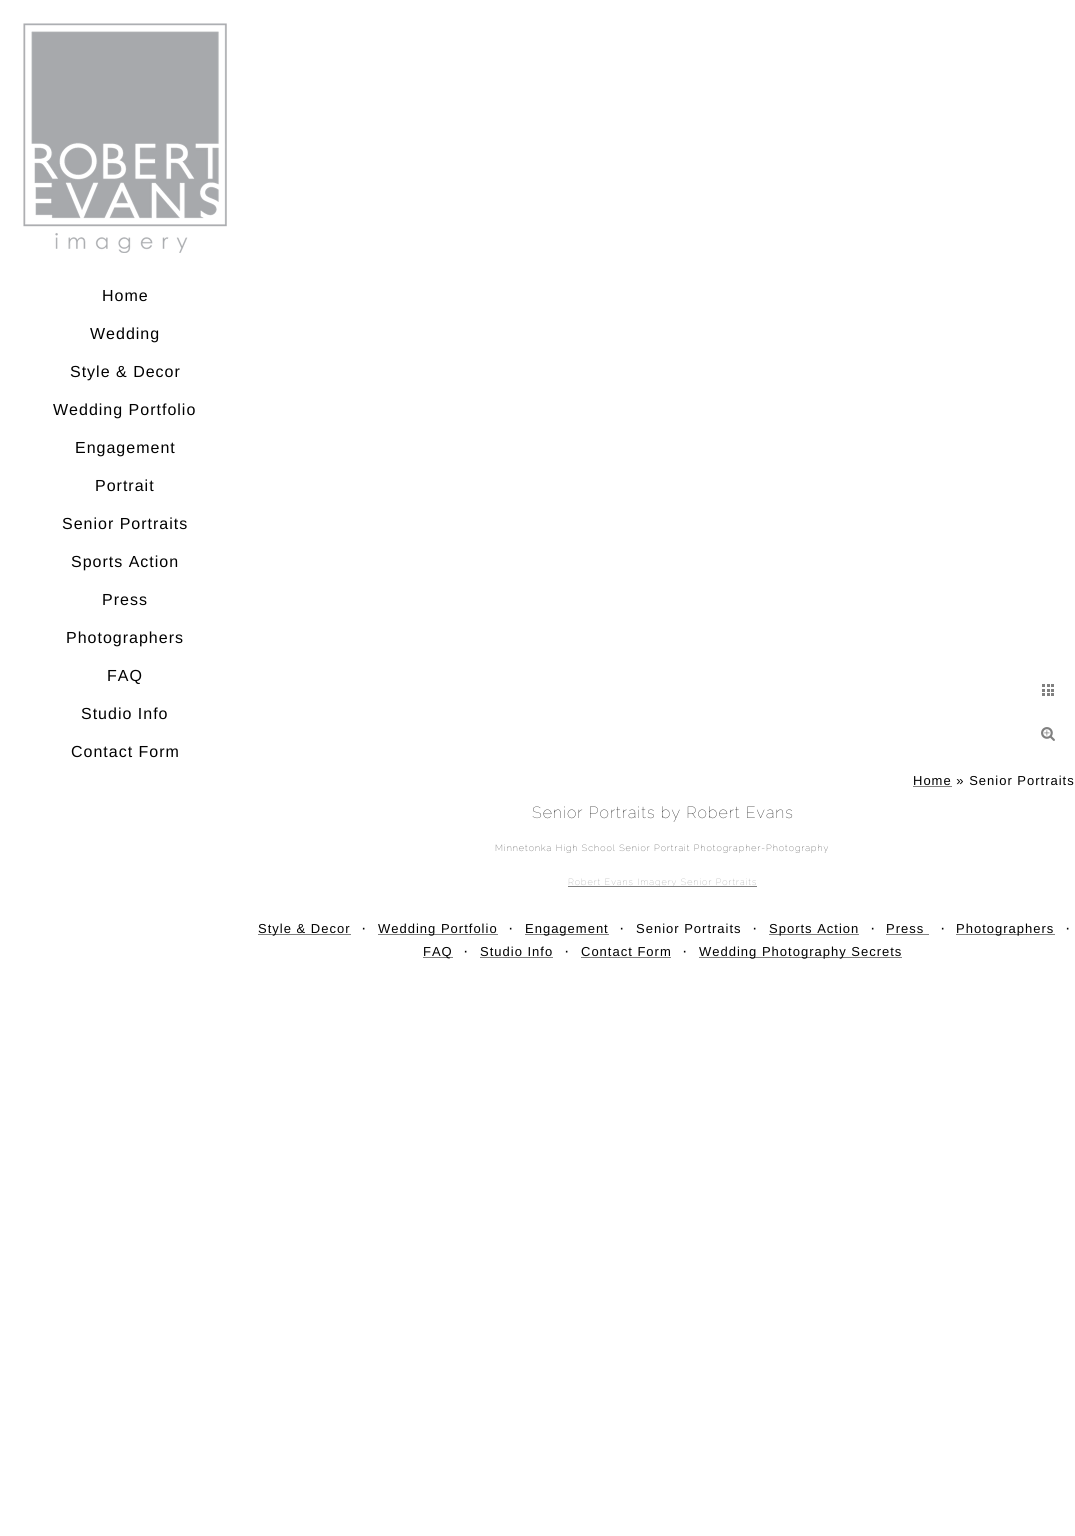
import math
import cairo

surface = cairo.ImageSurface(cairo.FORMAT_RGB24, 1075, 1536)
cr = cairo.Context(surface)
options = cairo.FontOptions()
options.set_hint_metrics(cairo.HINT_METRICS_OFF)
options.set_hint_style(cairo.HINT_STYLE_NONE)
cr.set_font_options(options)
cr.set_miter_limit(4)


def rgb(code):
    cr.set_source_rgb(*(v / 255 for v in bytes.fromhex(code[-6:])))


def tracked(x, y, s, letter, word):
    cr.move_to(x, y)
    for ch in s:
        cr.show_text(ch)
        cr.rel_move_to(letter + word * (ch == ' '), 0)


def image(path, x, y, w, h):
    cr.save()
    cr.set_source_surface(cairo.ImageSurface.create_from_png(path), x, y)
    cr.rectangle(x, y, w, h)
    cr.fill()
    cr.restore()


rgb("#ffffff")
cr.paint()
image("img/1.png", 23, 23, 204, 230)
image("img/2.png", 1042, 684, 12, 12)
image("img/3.png", 1041, 727, 14, 14)
for x, y, w, h, color in [
    (913, 786, 39, 1, "#808080"),
    (568, 886, 189, 1, "#808080"),
    (258, 934, 93, 1, "#808080"),
    (378, 934, 120, 1, "#808080"),
    (525, 934, 84, 1, "#808080"),
    (769, 934, 90, 1, "#808080"),
    (886, 934, 43, 1, "#808080"),
    (956, 934, 99, 1, "#808080"),
    (423, 957, 30, 1, "#808080"),
    (480, 957, 73, 1, "#808080"),
    (581, 957, 90, 1, "#808080"),
    (699, 957, 203, 1, "#808080"),
]:
    rgb(color)
    cr.rectangle(x, y, w, h)
    cr.fill()
cr.select_font_face("Liberation Sans")
cr.set_font_size(16)
rgb("#000000")
for x, y, s in [
    (102, 301, "Home"),
    (90, 339, "Wedding"),
    (70, 377, "Style & Decor"),
    (53, 415, "Wedding Portfolio"),
    (75, 453, "Engagement"),
    (95, 491, "Portrait"),
    (62, 529, "Senior Portraits"),
    (71, 567, "Sports Action"),
    (102, 605, "Press"),
    (66, 643, "Photographers"),
    (107, 681, "FAQ"),
    (81, 719, "Studio Info"),
    (71, 757, "Contact Form"),
]:
    tracked(x, y, s, 1, 0)
cr.set_font_size(13)
tracked(913, 785, "Home » Senior Portraits", 1, 0)
cr.select_font_face("Raleway Thin")
cr.set_font_size(16)
tracked(532, 818, "Senior Portraits by Robert Evans", 1, 0)
cr.set_font_size(9)
tracked(495, 851, "Minnetonka High School Senior Portrait Photographer-Photography", 1, 0)
rgb("#808080")
tracked(568, 885, "Robert Evans Imagery Senior Portraits", 1, 0)
cr.select_font_face("Liberation Sans")
cr.set_font_size(13)
rgb("#000000")
tracked(258, 933, "Style & Decor", 1, 0)
cr.set_font_size(16)
tracked(361, 933, "·", 1, 0)
cr.set_font_size(13)
tracked(378, 933, "Wedding Portfolio", 1, 0)
cr.set_font_size(16)
tracked(508, 933, "·", 1, 0)
cr.set_font_size(13)
tracked(525, 933, "Engagement", 1, 0)
cr.set_font_size(16)
tracked(619, 933, "·", 1, 0)
cr.set_font_size(13)
tracked(636, 933, "Senior Portraits", 1, 0)
cr.set_font_size(16)
tracked(752, 933, "·", 1, 0)
cr.set_font_size(13)
tracked(769, 933, "Sports Action", 1, 0)
cr.set_font_size(16)
tracked(870, 933, "·", 1, 0)
cr.set_font_size(13)
tracked(886, 933, "Press", 1, 0)
cr.set_font_size(16)
tracked(940, 933, "·", 1, 0)
cr.set_font_size(13)
tracked(956, 933, "Photographers", 1, 0)
cr.set_font_size(16)
tracked(1065, 933, "·", 1, 0)
cr.set_font_size(13)
tracked(423, 956, "FAQ", 1, 0)
cr.set_font_size(16)
tracked(463, 956, "·", 1, 0)
cr.set_font_size(13)
tracked(480, 956, "Studio Info", 1, 0)
cr.set_font_size(16)
tracked(564, 956, "·", 1, 0)
cr.set_font_size(13)
tracked(581, 956, "Contact Form", 1, 0)
cr.set_font_size(16)
tracked(682, 956, "·", 1, 0)
cr.set_font_size(13)
tracked(699, 956, "Wedding Photography Secrets", 1, 0)
surface.write_to_png("page.png")
